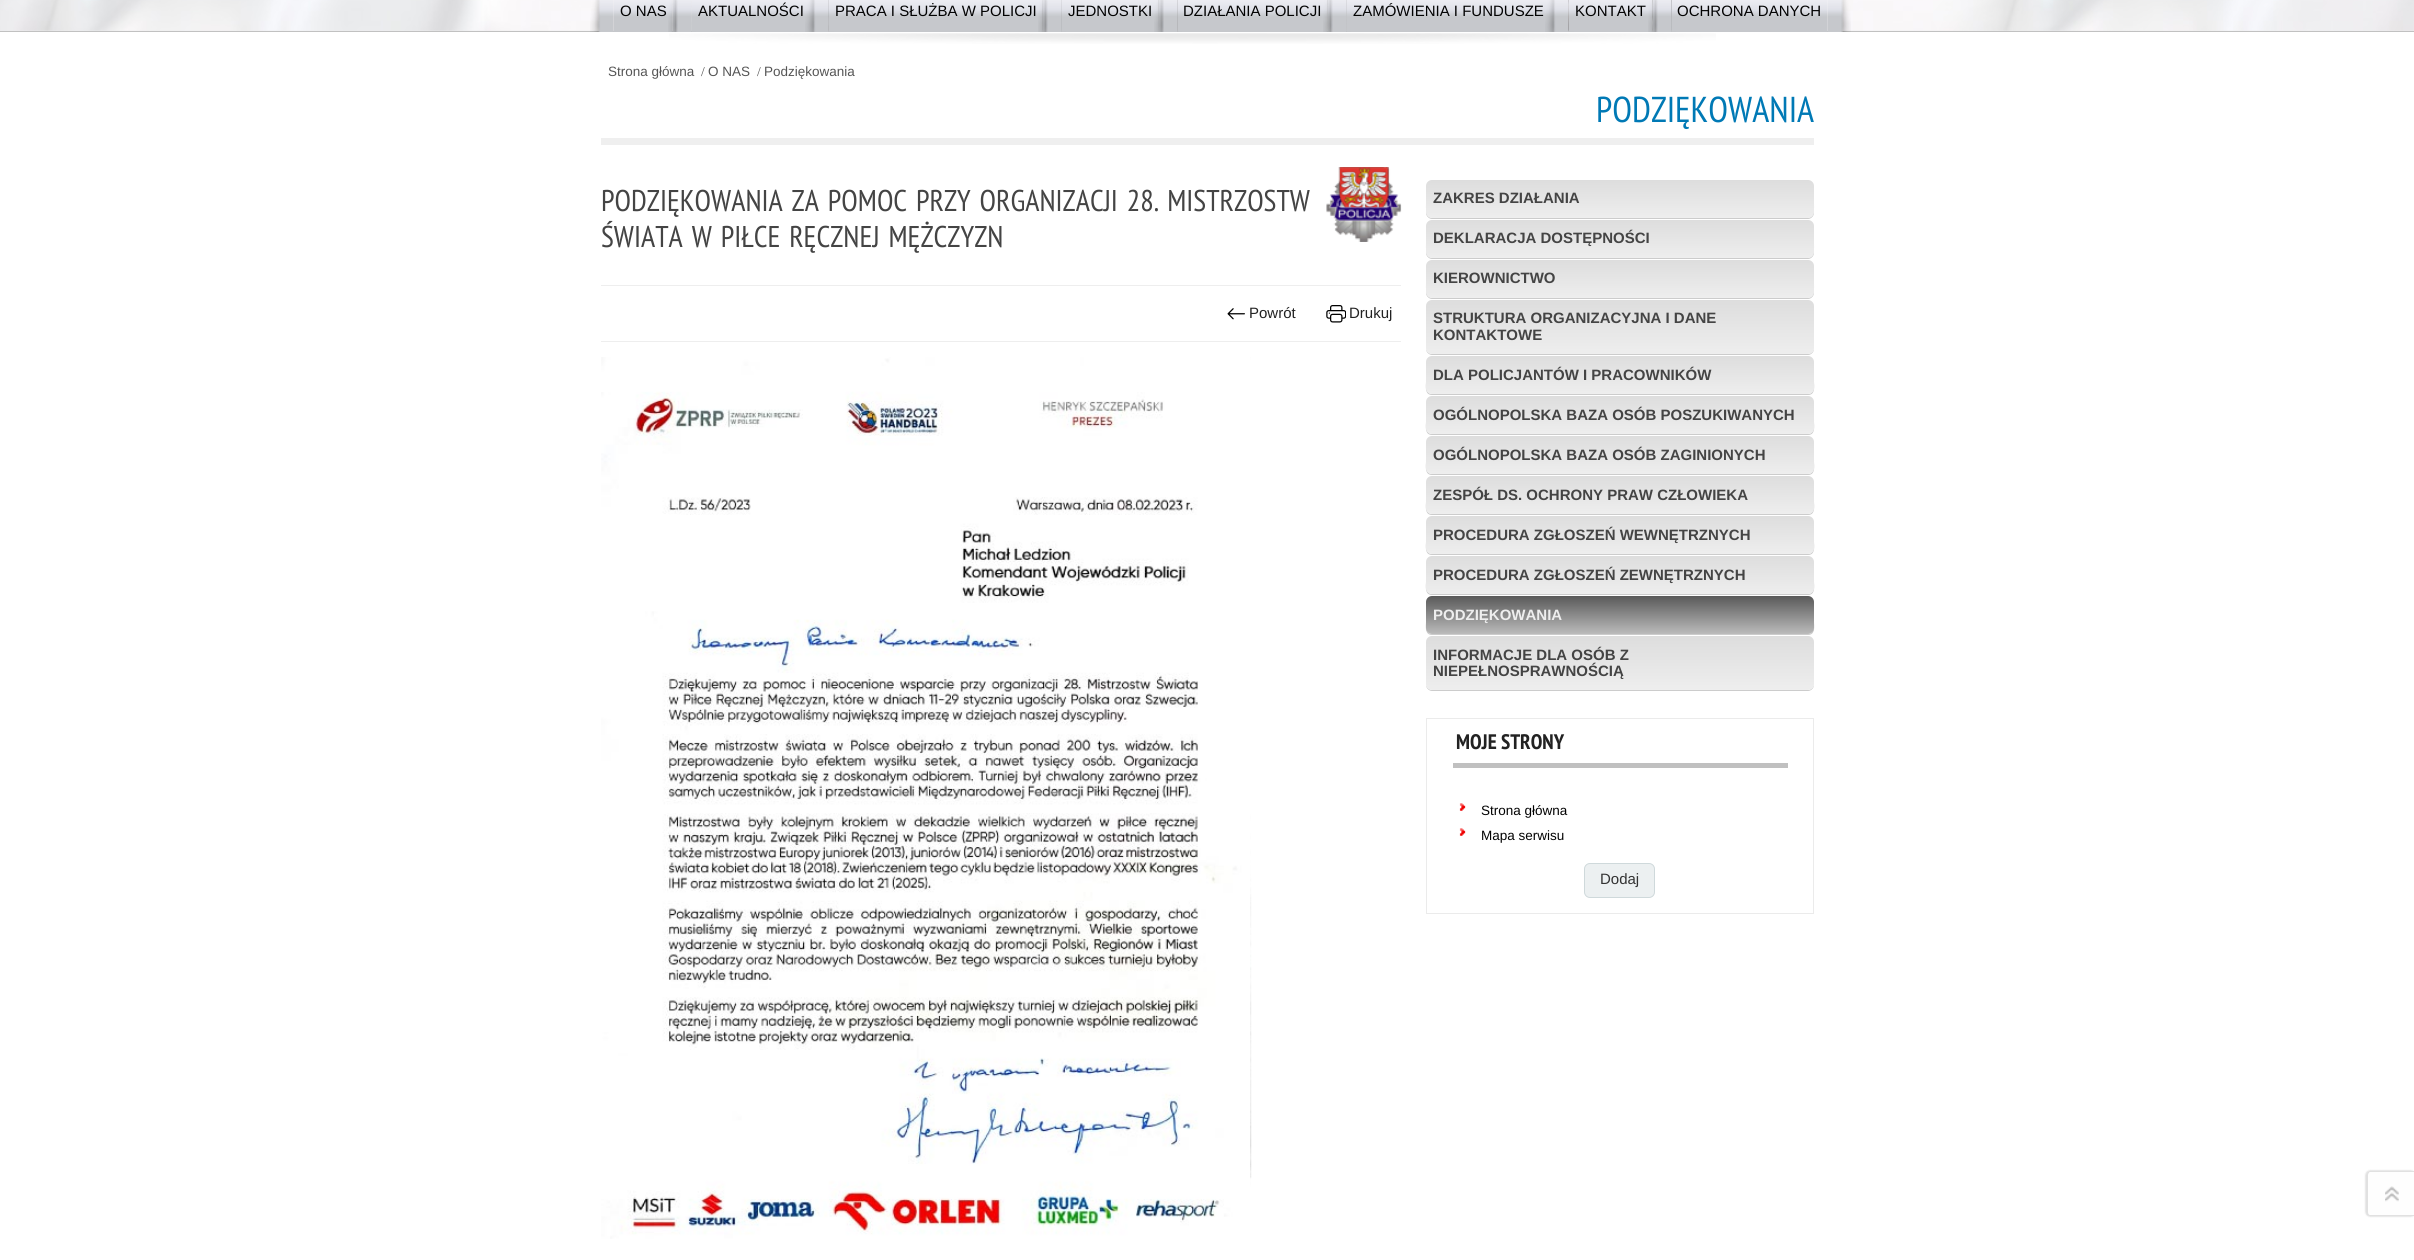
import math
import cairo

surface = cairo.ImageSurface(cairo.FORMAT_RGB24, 2414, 1260)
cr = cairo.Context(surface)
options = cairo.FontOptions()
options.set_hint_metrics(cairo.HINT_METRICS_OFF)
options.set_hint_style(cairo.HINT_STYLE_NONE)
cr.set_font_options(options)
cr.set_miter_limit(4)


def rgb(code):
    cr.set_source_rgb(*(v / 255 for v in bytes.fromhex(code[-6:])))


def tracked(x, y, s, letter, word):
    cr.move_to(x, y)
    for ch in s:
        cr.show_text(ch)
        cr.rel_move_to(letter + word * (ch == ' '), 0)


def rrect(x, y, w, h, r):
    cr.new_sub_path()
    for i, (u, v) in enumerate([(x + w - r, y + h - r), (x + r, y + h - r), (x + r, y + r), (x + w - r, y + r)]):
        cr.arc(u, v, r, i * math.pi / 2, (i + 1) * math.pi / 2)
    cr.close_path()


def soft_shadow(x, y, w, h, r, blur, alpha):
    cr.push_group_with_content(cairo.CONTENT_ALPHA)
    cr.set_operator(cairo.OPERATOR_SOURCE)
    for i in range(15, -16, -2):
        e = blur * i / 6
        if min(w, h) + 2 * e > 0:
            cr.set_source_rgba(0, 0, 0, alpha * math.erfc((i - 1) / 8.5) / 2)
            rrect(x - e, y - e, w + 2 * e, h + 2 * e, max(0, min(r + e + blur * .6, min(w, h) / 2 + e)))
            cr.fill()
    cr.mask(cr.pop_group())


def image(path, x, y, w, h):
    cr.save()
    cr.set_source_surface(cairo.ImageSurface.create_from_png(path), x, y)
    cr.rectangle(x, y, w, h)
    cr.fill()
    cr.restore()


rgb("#ffffff")
cr.paint()
image("img/1.png", 0, 0, 2414, 31)
image("img/2.png", 669, 33, 1047, 11)
image("img/3.png", 672, 0, 1000, 31)
rgb("#c1c1c1")
cr.rectangle(0, 31, 2414, 1)
cr.fill()
image("img/4.png", 672, 0, 24, 32)
image("img/5.png", 590, 0, 24, 32)
image("img/6.png", 614, 0, 59, 32)
image("img/7.png", 810, 0, 24, 32)
image("img/8.png", 668, 0, 24, 32)
image("img/9.png", 691, 0, 119, 32)
image("img/10.png", 1042, 0, 24, 32)
image("img/11.png", 805, 0, 24, 32)
image("img/12.png", 828, 0, 215, 32)
image("img/13.png", 1158, 0, 24, 32)
image("img/14.png", 1038, 0, 24, 32)
image("img/15.png", 1061, 0, 98, 32)
image("img/16.png", 1327, 0, 24, 32)
image("img/17.png", 1154, 0, 24, 32)
image("img/18.png", 1177, 0, 151, 32)
image("img/19.png", 1550, 0, 24, 32)
image("img/20.png", 1323, 0, 24, 32)
image("img/21.png", 1346, 0, 204, 32)
image("img/22.png", 1652, 0, 24, 32)
image("img/23.png", 1545, 0, 24, 32)
image("img/24.png", 1568, 0, 85, 32)
image("img/25.png", 1827, 0, 24, 32)
image("img/26.png", 1648, 0, 24, 32)
image("img/27.png", 1671, 0, 157, 32)
rgb("#efefef")
cr.rectangle(601, 138, 1213, 7)
cr.fill()
image("img/28.png", 1326, 167, 76, 75)
rgb("#eeeeee")
cr.rectangle(601, 285, 800, 1)
cr.fill()
cr.rectangle(601, 341, 800, 1)
cr.fill()
image("img/29.png", 1227, 308, 18, 12)
image("img/30.png", 1326, 305, 20, 18)
image("img/31.png", 601, 357, 651, 882)
rgb("#cccccc")
cr.new_path()
cr.move_to(1426, 185)
cr.line_to(1426, 187)
cr.line_to(1426, 213)
cr.curve_to(1426, 216, 1429, 219, 1432, 219)
cr.line_to(1808, 219)
cr.curve_to(1811, 219, 1814, 216, 1814, 213)
cr.line_to(1814, 187)
cr.line_to(1814, 185)
cr.line_to(1814, 203)
cr.curve_to(1814, 208, 1815, 217, 1808, 218)
cr.line_to(1432, 218)
cr.curve_to(1425, 217, 1426, 208, 1426, 203)
cr.close_path()
cr.fill()
gradient = cairo.LinearGradient(1620, 218, 1620, 180)
gradient.add_color_stop_rgba(0, 0.933, 0.933, 0.933, 1)
gradient.add_color_stop_rgba(1, 0.867, 0.867, 0.867, 1)
cr.set_source(gradient)
rrect(1426, 180, 388, 38, 6)
cr.fill()
rgb("#cccccc")
cr.new_path()
cr.move_to(1426, 225)
cr.line_to(1426, 227)
cr.line_to(1426, 253)
cr.curve_to(1426, 256, 1429, 259, 1432, 259)
cr.line_to(1808, 259)
cr.curve_to(1811, 259, 1814, 256, 1814, 253)
cr.line_to(1814, 227)
cr.line_to(1814, 225)
cr.line_to(1814, 243)
cr.curve_to(1814, 248, 1815, 257, 1808, 258)
cr.line_to(1432, 258)
cr.curve_to(1425, 257, 1426, 248, 1426, 243)
cr.close_path()
cr.fill()
gradient = cairo.LinearGradient(1620, 258, 1620, 220)
gradient.add_color_stop_rgba(0, 0.933, 0.933, 0.933, 1)
gradient.add_color_stop_rgba(1, 0.867, 0.867, 0.867, 1)
cr.set_source(gradient)
rrect(1426, 220, 388, 38, 6)
cr.fill()
rgb("#cccccc")
cr.new_path()
cr.move_to(1426, 265)
cr.line_to(1426, 267)
cr.line_to(1426, 293)
cr.curve_to(1426, 296, 1429, 299, 1432, 299)
cr.line_to(1808, 299)
cr.curve_to(1811, 299, 1814, 296, 1814, 293)
cr.line_to(1814, 267)
cr.line_to(1814, 265)
cr.line_to(1814, 283)
cr.curve_to(1814, 288, 1815, 297, 1808, 298)
cr.line_to(1432, 298)
cr.curve_to(1425, 297, 1426, 288, 1426, 283)
cr.close_path()
cr.fill()
gradient = cairo.LinearGradient(1620, 298, 1620, 260)
gradient.add_color_stop_rgba(0, 0.933, 0.933, 0.933, 1)
gradient.add_color_stop_rgba(1, 0.867, 0.867, 0.867, 1)
cr.set_source(gradient)
rrect(1426, 260, 388, 38, 6)
cr.fill()
rgb("#cccccc")
cr.new_path()
cr.move_to(1426, 305)
cr.line_to(1426, 307)
cr.line_to(1426, 349)
cr.curve_to(1426, 352, 1429, 355, 1432, 355)
cr.line_to(1808, 355)
cr.curve_to(1811, 355, 1814, 352, 1814, 349)
cr.line_to(1814, 307)
cr.line_to(1814, 305)
cr.line_to(1814, 348)
cr.curve_to(1814, 351, 1811, 354, 1808, 354)
cr.line_to(1432, 354)
cr.curve_to(1429, 354, 1426, 351, 1426, 348)
cr.close_path()
cr.fill()
gradient = cairo.LinearGradient(1620, 354, 1620, 300)
gradient.add_color_stop_rgba(0, 0.933, 0.933, 0.933, 1)
gradient.add_color_stop_rgba(1, 0.867, 0.867, 0.867, 1)
cr.set_source(gradient)
rrect(1426, 300, 388, 54, 6)
cr.fill()
rgb("#cccccc")
cr.new_path()
cr.move_to(1426, 362)
cr.line_to(1426, 381)
cr.curve_to(1426, 385, 1424, 395, 1432, 395)
cr.line_to(1808, 395)
cr.curve_to(1816, 395, 1814, 385, 1814, 381)
cr.line_to(1814, 362)
cr.line_to(1814, 379)
cr.curve_to(1814, 384, 1815, 394, 1808, 394)
cr.line_to(1432, 394)
cr.curve_to(1425, 394, 1426, 384, 1426, 379)
cr.close_path()
cr.fill()
gradient = cairo.LinearGradient(1620, 394, 1620, 356)
gradient.add_color_stop_rgba(0, 0.933, 0.933, 0.933, 1)
gradient.add_color_stop_rgba(1, 0.867, 0.867, 0.867, 1)
cr.set_source(gradient)
rrect(1426, 356, 388, 38, 6)
cr.fill()
rgb("#cccccc")
cr.new_path()
cr.move_to(1426, 402)
cr.line_to(1426, 421)
cr.curve_to(1426, 425, 1424, 435, 1432, 435)
cr.line_to(1808, 435)
cr.curve_to(1816, 435, 1814, 425, 1814, 421)
cr.line_to(1814, 402)
cr.line_to(1814, 419)
cr.curve_to(1814, 424, 1815, 434, 1808, 434)
cr.line_to(1432, 434)
cr.curve_to(1425, 434, 1426, 424, 1426, 419)
cr.close_path()
cr.fill()
gradient = cairo.LinearGradient(1620, 434, 1620, 396)
gradient.add_color_stop_rgba(0, 0.933, 0.933, 0.933, 1)
gradient.add_color_stop_rgba(1, 0.867, 0.867, 0.867, 1)
cr.set_source(gradient)
rrect(1426, 396, 388, 38, 6)
cr.fill()
rgb("#cccccc")
cr.new_path()
cr.move_to(1426, 442)
cr.line_to(1426, 461)
cr.curve_to(1426, 465, 1424, 475, 1432, 475)
cr.line_to(1808, 475)
cr.curve_to(1816, 475, 1814, 465, 1814, 461)
cr.line_to(1814, 442)
cr.line_to(1814, 459)
cr.curve_to(1814, 464, 1815, 474, 1808, 474)
cr.line_to(1432, 474)
cr.curve_to(1425, 474, 1426, 464, 1426, 459)
cr.close_path()
cr.fill()
gradient = cairo.LinearGradient(1620, 474, 1620, 436)
gradient.add_color_stop_rgba(0, 0.933, 0.933, 0.933, 1)
gradient.add_color_stop_rgba(1, 0.867, 0.867, 0.867, 1)
cr.set_source(gradient)
rrect(1426, 436, 388, 38, 6)
cr.fill()
rgb("#cccccc")
cr.new_path()
cr.move_to(1426, 482)
cr.line_to(1426, 501)
cr.curve_to(1426, 505, 1424, 515, 1432, 515)
cr.line_to(1808, 515)
cr.curve_to(1816, 515, 1814, 505, 1814, 501)
cr.line_to(1814, 482)
cr.line_to(1814, 499)
cr.curve_to(1814, 504, 1815, 514, 1808, 514)
cr.line_to(1432, 514)
cr.curve_to(1425, 514, 1426, 504, 1426, 499)
cr.close_path()
cr.fill()
gradient = cairo.LinearGradient(1620, 514, 1620, 476)
gradient.add_color_stop_rgba(0, 0.933, 0.933, 0.933, 1)
gradient.add_color_stop_rgba(1, 0.867, 0.867, 0.867, 1)
cr.set_source(gradient)
rrect(1426, 476, 388, 38, 6)
cr.fill()
rgb("#cccccc")
cr.new_path()
cr.move_to(1426, 522)
cr.line_to(1426, 541)
cr.curve_to(1426, 545, 1424, 555, 1432, 555)
cr.line_to(1808, 555)
cr.curve_to(1816, 555, 1814, 545, 1814, 541)
cr.line_to(1814, 522)
cr.line_to(1814, 539)
cr.curve_to(1814, 544, 1815, 554, 1808, 554)
cr.line_to(1432, 554)
cr.curve_to(1425, 554, 1426, 544, 1426, 539)
cr.close_path()
cr.fill()
gradient = cairo.LinearGradient(1620, 554, 1620, 516)
gradient.add_color_stop_rgba(0, 0.933, 0.933, 0.933, 1)
gradient.add_color_stop_rgba(1, 0.867, 0.867, 0.867, 1)
cr.set_source(gradient)
rrect(1426, 516, 388, 38, 6)
cr.fill()
rgb("#cccccc")
cr.new_path()
cr.move_to(1426, 562)
cr.line_to(1426, 581)
cr.curve_to(1426, 585, 1424, 595, 1432, 595)
cr.line_to(1808, 595)
cr.curve_to(1816, 595, 1814, 585, 1814, 581)
cr.line_to(1814, 562)
cr.line_to(1814, 579)
cr.curve_to(1814, 584, 1815, 594, 1808, 594)
cr.line_to(1432, 594)
cr.curve_to(1425, 594, 1426, 584, 1426, 579)
cr.close_path()
cr.fill()
gradient = cairo.LinearGradient(1620, 594, 1620, 556)
gradient.add_color_stop_rgba(0, 0.933, 0.933, 0.933, 1)
gradient.add_color_stop_rgba(1, 0.867, 0.867, 0.867, 1)
cr.set_source(gradient)
rrect(1426, 556, 388, 38, 6)
cr.fill()
rgb("#cccccc")
cr.new_path()
cr.move_to(1426, 602)
cr.line_to(1426, 621)
cr.curve_to(1426, 625, 1424, 635, 1432, 635)
cr.line_to(1808, 635)
cr.curve_to(1816, 635, 1814, 625, 1814, 621)
cr.line_to(1814, 602)
cr.line_to(1814, 619)
cr.curve_to(1814, 624, 1815, 634, 1808, 634)
cr.line_to(1432, 634)
cr.curve_to(1425, 634, 1426, 624, 1426, 619)
cr.close_path()
cr.fill()
gradient = cairo.LinearGradient(1620, 634, 1620, 596)
gradient.add_color_stop_rgba(0, 0.733, 0.733, 0.733, 1)
gradient.add_color_stop_rgba(1, 0.349, 0.349, 0.349, 1)
cr.set_source(gradient)
rrect(1426, 596, 388, 38, 6)
cr.fill()
rgb("#cccccc")
cr.new_path()
cr.move_to(1426, 642)
cr.line_to(1426, 685)
cr.curve_to(1426, 688, 1429, 691, 1432, 691)
cr.line_to(1808, 691)
cr.curve_to(1811, 691, 1814, 688, 1814, 685)
cr.line_to(1814, 642)
cr.line_to(1814, 684)
cr.curve_to(1814, 687, 1811, 690, 1808, 690)
cr.line_to(1432, 690)
cr.curve_to(1429, 690, 1426, 687, 1426, 684)
cr.close_path()
cr.fill()
gradient = cairo.LinearGradient(1620, 690, 1620, 636)
gradient.add_color_stop_rgba(0, 0.933, 0.933, 0.933, 1)
gradient.add_color_stop_rgba(1, 0.867, 0.867, 0.867, 1)
cr.set_source(gradient)
rrect(1426, 636, 388, 54, 6)
cr.fill()
cr.rectangle(1426.5, 718.5, 387, 195)
rgb("#ebebeb")
cr.set_line_width(1)
cr.stroke()
rgb("#c0c0c0")
cr.rectangle(1453, 763, 335, 5)
cr.fill()
image("img/32.png", 1459, 803, 7, 8)
image("img/32.png", 1459, 828, 7, 8)
rgb("#ecf0f1")
rrect(1584.5, 863.5, 70, 34, 5.5)
cr.fill_preserve()
rgb("#cfd9db")
cr.stroke()
rgb("#000000")
soft_shadow(2366, 1171, 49, 45, 4, 1, 0.25)
rgb("#fefefe")
cr.new_path()
cr.move_to(2370, 1171)
cr.line_to(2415, 1171)
cr.line_to(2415, 1216)
cr.line_to(2370, 1216)
cr.curve_to(2368, 1216, 2366, 1214, 2366, 1212)
cr.line_to(2366, 1175)
cr.curve_to(2366, 1173, 2368, 1171, 2370, 1171)
cr.close_path()
cr.fill()
rgb("#e1e1e1")
cr.set_fill_rule(cairo.FILL_RULE_EVEN_ODD)
cr.new_path()
cr.move_to(2370, 1171)
cr.line_to(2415, 1171)
cr.line_to(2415, 1216)
cr.line_to(2370, 1216)
cr.curve_to(2368, 1216, 2366, 1215, 2366, 1212)
cr.line_to(2366, 1175)
cr.curve_to(2366, 1173, 2368, 1171, 2370, 1171)
cr.close_path()
cr.move_to(2370, 1172)
cr.line_to(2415, 1172)
cr.line_to(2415, 1215)
cr.line_to(2370, 1215)
cr.curve_to(2369, 1215, 2368, 1214, 2368, 1212)
cr.line_to(2368, 1175)
cr.curve_to(2368, 1174, 2369, 1172, 2370, 1172)
cr.close_path()
cr.fill()
image("img/33.png", 2385, 1186, 14, 16)
cr.select_font_face("Liberation Sans")
cr.set_font_size(15)
rgb("#020202")
for x, y, s in [
    (620, 16, "O NAS"),
    (698, 16, "AKTUALNOŚCI"),
    (835, 16, "PRACA I SŁUŻBA W POLICJI"),
    (1068, 16, "JEDNOSTKI"),
    (1183, 16, "DZIAŁANIA POLICJI"),
    (1353, 16, "ZAMÓWIENIA I FUNDUSZE"),
    (1575, 16, "KONTAKT"),
    (1677, 16, "OCHRONA DANYCH"),
]:
    cr.move_to(x, y)
    cr.show_text(s)
cr.set_font_size(13.5)
rgb("#555555")
cr.move_to(608, 76)
cr.show_text("Strona główna")
cr.select_font_face("Liberation Serif")
cr.move_to(701, 76)
cr.show_text("/")
cr.select_font_face("Liberation Sans")
cr.move_to(708, 76)
cr.show_text("O NAS")
cr.select_font_face("Liberation Serif")
cr.move_to(757, 76)
cr.show_text("/")
cr.select_font_face("Liberation Sans")
cr.move_to(764, 76)
cr.show_text("Podziękowania")
cr.select_font_face("PT Sans Narrow")
cr.set_font_size(36)
rgb("#0079b5")
cr.move_to(1596, 122)
cr.show_text("PODZIĘKOWANIA")
cr.set_font_size(30)
rgb("#444444")
tracked(601, 211, "PODZIĘKOWANIA ZA POMOC PRZY ORGANIZACJI 28. MISTRZOSTW", 0, 2.5)
tracked(601, 247, "ŚWIATA W PIŁCE RĘCZNEJ MĘŻCZYZN", 0, 2.5)
cr.select_font_face("Liberation Sans")
cr.set_font_size(15)
rgb("#222222")
cr.move_to(1249, 318)
cr.show_text("Powrót")
cr.move_to(1349, 318)
cr.show_text("Drukuj")
cr.select_font_face("Liberation Sans", cairo.FONT_SLANT_NORMAL, cairo.FONT_WEIGHT_BOLD)
rgb("#444444")
for x, y, s in [
    (1433, 203, "ZAKRES DZIAŁANIA"),
    (1433, 243, "DEKLARACJA DOSTĘPNOŚCI"),
    (1433, 283, "KIEROWNICTWO"),
    (1433, 323, "STRUKTURA ORGANIZACYJNA I DANE"),
    (1433, 340, "KONTAKTOWE"),
    (1433, 380, "DLA POLICJANTÓW I PRACOWNIKÓW"),
    (1433, 420, "OGÓLNOPOLSKA BAZA OSÓB POSZUKIWANYCH"),
    (1433, 460, "OGÓLNOPOLSKA BAZA OSÓB ZAGINIONYCH"),
    (1433, 500, "ZESPÓŁ DS. OCHRONY PRAW CZŁOWIEKA"),
    (1433, 540, "PROCEDURA ZGŁOSZEŃ WEWNĘTRZNYCH"),
    (1433, 580, "PROCEDURA ZGŁOSZEŃ ZEWNĘTRZNYCH"),
]:
    cr.move_to(x, y)
    cr.show_text(s)
rgb("#eeeeee")
cr.move_to(1433, 620)
cr.show_text("PODZIĘKOWANIA")
rgb("#444444")
cr.move_to(1433, 660)
cr.show_text("INFORMACJE DLA OSÓB Z")
cr.move_to(1433, 676)
cr.show_text("NIEPEŁNOSPRAWNOŚCIĄ")
cr.select_font_face("PT Sans Narrow", cairo.FONT_SLANT_NORMAL, cairo.FONT_WEIGHT_BOLD)
cr.set_font_size(21)
rgb("#222222")
cr.move_to(1456, 749)
cr.show_text("MOJE STRONY")
cr.select_font_face("Liberation Sans")
cr.set_font_size(13.5)
rgb("#020202")
cr.move_to(1481, 815)
cr.show_text("Strona główna")
cr.move_to(1481, 840)
cr.show_text("Mapa serwisu")
cr.set_font_size(15)
rgb("#333333")
cr.move_to(1600, 884)
cr.show_text("Dodaj")
surface.write_to_png("page.png")
